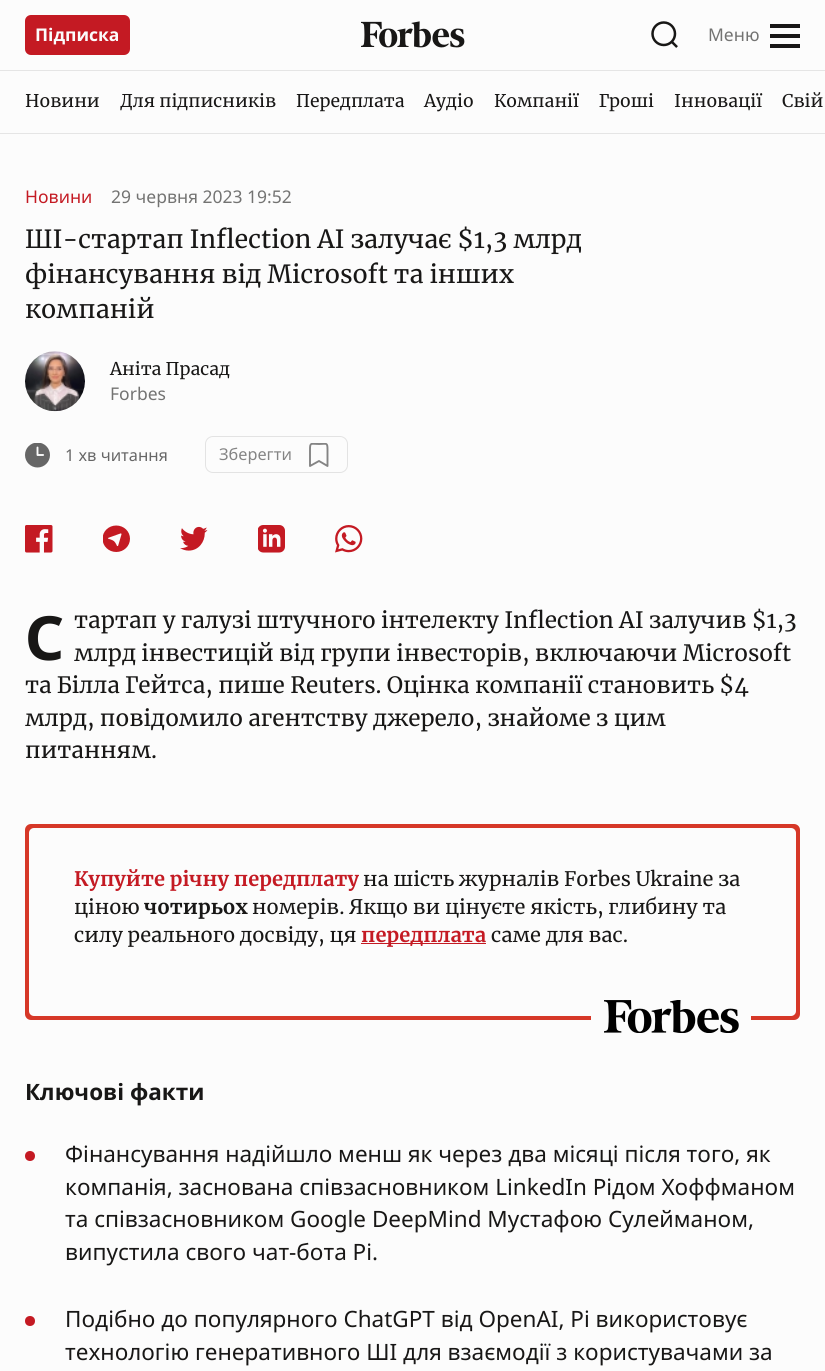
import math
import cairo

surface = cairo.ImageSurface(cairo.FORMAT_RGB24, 825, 1371)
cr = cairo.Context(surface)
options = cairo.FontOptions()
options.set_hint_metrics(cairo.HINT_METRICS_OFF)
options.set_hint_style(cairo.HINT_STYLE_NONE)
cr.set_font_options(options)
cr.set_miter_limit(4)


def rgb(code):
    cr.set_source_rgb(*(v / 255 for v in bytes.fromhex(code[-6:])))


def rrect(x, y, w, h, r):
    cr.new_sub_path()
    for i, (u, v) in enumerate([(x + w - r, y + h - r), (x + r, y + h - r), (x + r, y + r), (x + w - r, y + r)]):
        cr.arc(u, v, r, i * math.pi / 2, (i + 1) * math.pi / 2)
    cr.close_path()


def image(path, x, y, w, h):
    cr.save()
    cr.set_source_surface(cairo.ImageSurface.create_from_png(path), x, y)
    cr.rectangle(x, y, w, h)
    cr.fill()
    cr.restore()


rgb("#fcfcfc")
cr.paint()
rgb("#c41a23")
rrect(25, 15, 105, 40, 6)
cr.fill()
image("img/1.png", 361, 21, 104, 27)
image("img/2.png", 651, 21, 27, 27)
for x, y, w, h, color in [
    (770, 24, 30, 4, "#181716"),
    (770, 34, 30, 4, "#181716"),
    (770, 44, 30, 4, "#181716"),
    (0, 70, 825, 1, "#e5e5e5"),
    (0, 133, 825, 1, "#e5e5e5"),
]:
    rgb(color)
    cr.rectangle(x, y, w, h)
    cr.fill()
image("img/3.png", 25, 351, 60, 61)
image("img/4.png", 25, 443, 25, 25)
rrect(205.5, 436.5, 142, 36, 7.5)
rgb("#e3e3e3")
cr.set_line_width(1)
cr.stroke()
cr.save()
cr.rectangle(309, 443, 20, 25)
cr.clip()
cr.new_path()
cr.move_to(327.5, 466)
cr.line_to(319, 461)
cr.line_to(310, 466)
cr.line_to(310, 449.5)
cr.curve_to(310, 442, 311, 444, 319, 444)
cr.curve_to(326.5, 444, 327.5, 442, 327.5, 449.5)
cr.close_path()
rgb("#848484")
cr.set_line_width(1.9)
cr.set_line_cap(cairo.LINE_CAP_ROUND)
cr.set_line_join(cairo.LINE_JOIN_ROUND)
cr.stroke()
cr.restore()
image("img/5.png", 25, 525, 28, 28)
image("img/6.png", 103, 525, 27, 27)
image("img/7.png", 180, 526, 28, 25)
image("img/8.png", 258, 525, 27, 28)
image("img/9.png", 335, 525, 28, 28)
rgb("#d63828")
rrect(25, 824, 775, 196, 6)
cr.fill()
rgb("#fcfcfc")
rrect(29, 828, 767, 188, 5)
cr.fill()
rgb("#c41a23")
cr.rectangle(361, 943, 125, 1)
cr.fill()
rgb("#fcfcfc")
cr.rectangle(591, 1016, 160, 4)
cr.fill()
image("img/10.png", 604, 1000, 135, 33)
rgb("#c41a23")
cr.arc(30, 1156, 5, 0, 2 * math.pi)
cr.fill()
cr.arc(30, 1321, 5, 0, 2 * math.pi)
cr.fill()
cr.select_font_face("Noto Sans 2", cairo.FONT_SLANT_NORMAL, cairo.FONT_WEIGHT_BOLD)
cr.set_font_size(17.5)
rgb("#fcfcfc")
cr.move_to(35, 41)
cr.show_text("Підписка")
cr.select_font_face("Noto Sans")
rgb("#737372")
cr.move_to(708, 41)
cr.show_text("Меню")
cr.select_font_face("Merriweather")
rgb("#181716")
for x, y, s in [
    (25, 107, "Новини"),
    (120, 107, "Для підписників"),
    (296, 107, "Передплата"),
    (424, 107, "Аудіо"),
    (494, 107, "Компанії"),
    (599, 107, "Гроші"),
    (674, 107, "Інновації"),
    (782, 107, "Свій"),
]:
    cr.move_to(x, y)
    cr.show_text(s)
cr.select_font_face("Noto Sans")
rgb("#c41a23")
cr.move_to(25, 203)
cr.show_text("Новини")
rgb("#737372")
cr.move_to(111, 203)
cr.show_text("29 червня 2023 19:52")
cr.select_font_face("Merriweather")
cr.set_font_size(25)
rgb("#181716")
for x, y, s in [
    (25, 248, "ШІ-стартап Inflection AI залучає $1,3 млрд"),
    (25, 283, "фінансування від Microsoft та інших"),
    (25, 318, "компаній"),
]:
    cr.move_to(x, y)
    cr.show_text(s)
cr.set_font_size(17.5)
cr.move_to(110, 375)
cr.show_text("Аніта Прасад")
cr.select_font_face("Noto Sans")
rgb("#737372")
cr.move_to(110, 400)
cr.show_text("Forbes")
cr.set_font_size(16.25)
rgb("#666666")
cr.move_to(65, 461)
cr.show_text("1 хв читання")
rgb("#848484")
cr.move_to(219, 460)
cr.show_text("Зберегти")
cr.select_font_face("Merriweather")
cr.set_font_size(22.5)
rgb("#181716")
for x, y, s in [
    (74, 628, "тартап у галузі штучного інтелекту Inflection AI залучив $1,3"),
    (74, 661, "млрд інвестицій від групи інвесторів, включаючи Microsoft"),
    (25, 693, "та Білла Гейтса, пише Reuters. Оцінка компанії становить $4"),
    (25, 726, "млрд, повідомило агентству джерело, знайоме з цим"),
    (25, 758, "питанням."),
]:
    cr.move_to(x, y)
    cr.show_text(s)
cr.select_font_face("Noto Sans", cairo.FONT_SLANT_NORMAL, cairo.FONT_WEIGHT_BOLD)
cr.set_font_size(61)
cr.move_to(25, 660)
cr.show_text("С")
cr.select_font_face("Merriweather", cairo.FONT_SLANT_NORMAL, cairo.FONT_WEIGHT_BOLD)
cr.set_font_size(20)
rgb("#c41a23")
cr.move_to(74, 886)
cr.show_text("Купуйте річну передплату")
cr.select_font_face("Merriweather")
rgb("#181716")
cr.move_to(363, 886)
cr.show_text("на шість журналів Forbes Ukraine за")
cr.move_to(74, 914)
cr.show_text("ціною")
cr.select_font_face("Merriweather", cairo.FONT_SLANT_NORMAL, cairo.FONT_WEIGHT_BOLD)
cr.move_to(144, 914)
cr.show_text("чотирьох")
cr.select_font_face("Merriweather")
cr.move_to(252, 914)
cr.show_text("номерів. Якщо ви цінуєте якість, глибину та")
cr.move_to(74, 942)
cr.show_text("силу реального досвіду, ця")
cr.select_font_face("Merriweather", cairo.FONT_SLANT_NORMAL, cairo.FONT_WEIGHT_BOLD)
rgb("#c41a23")
cr.move_to(361, 942)
cr.show_text("передплата")
cr.select_font_face("Merriweather")
rgb("#181716")
cr.move_to(491, 942)
cr.show_text("саме для вас.")
cr.select_font_face("Noto Sans 2", cairo.FONT_SLANT_NORMAL, cairo.FONT_WEIGHT_BOLD)
cr.set_font_size(22.5)
cr.move_to(25, 1100)
cr.show_text("Ключові факти")
cr.select_font_face("Noto Sans")
for x, y, s in [
    (65, 1162, "Фінансування надійшло менш як через два місяці після того, як"),
    (65, 1195, "компанія, заснована співзасновником LinkedIn Рідом Хоффманом"),
    (65, 1227, "та співзасновником Google DeepMind Мустафою Сулейманом,"),
    (65, 1260, "випустила свого чат-бота Pi."),
    (65, 1327, "Подібно до популярного ChatGPT від OpenAI, Pi використовує"),
    (65, 1360, "технологію генеративного ШІ для взаємодії з користувачами за"),
]:
    cr.move_to(x, y)
    cr.show_text(s)
surface.write_to_png("page.png")
